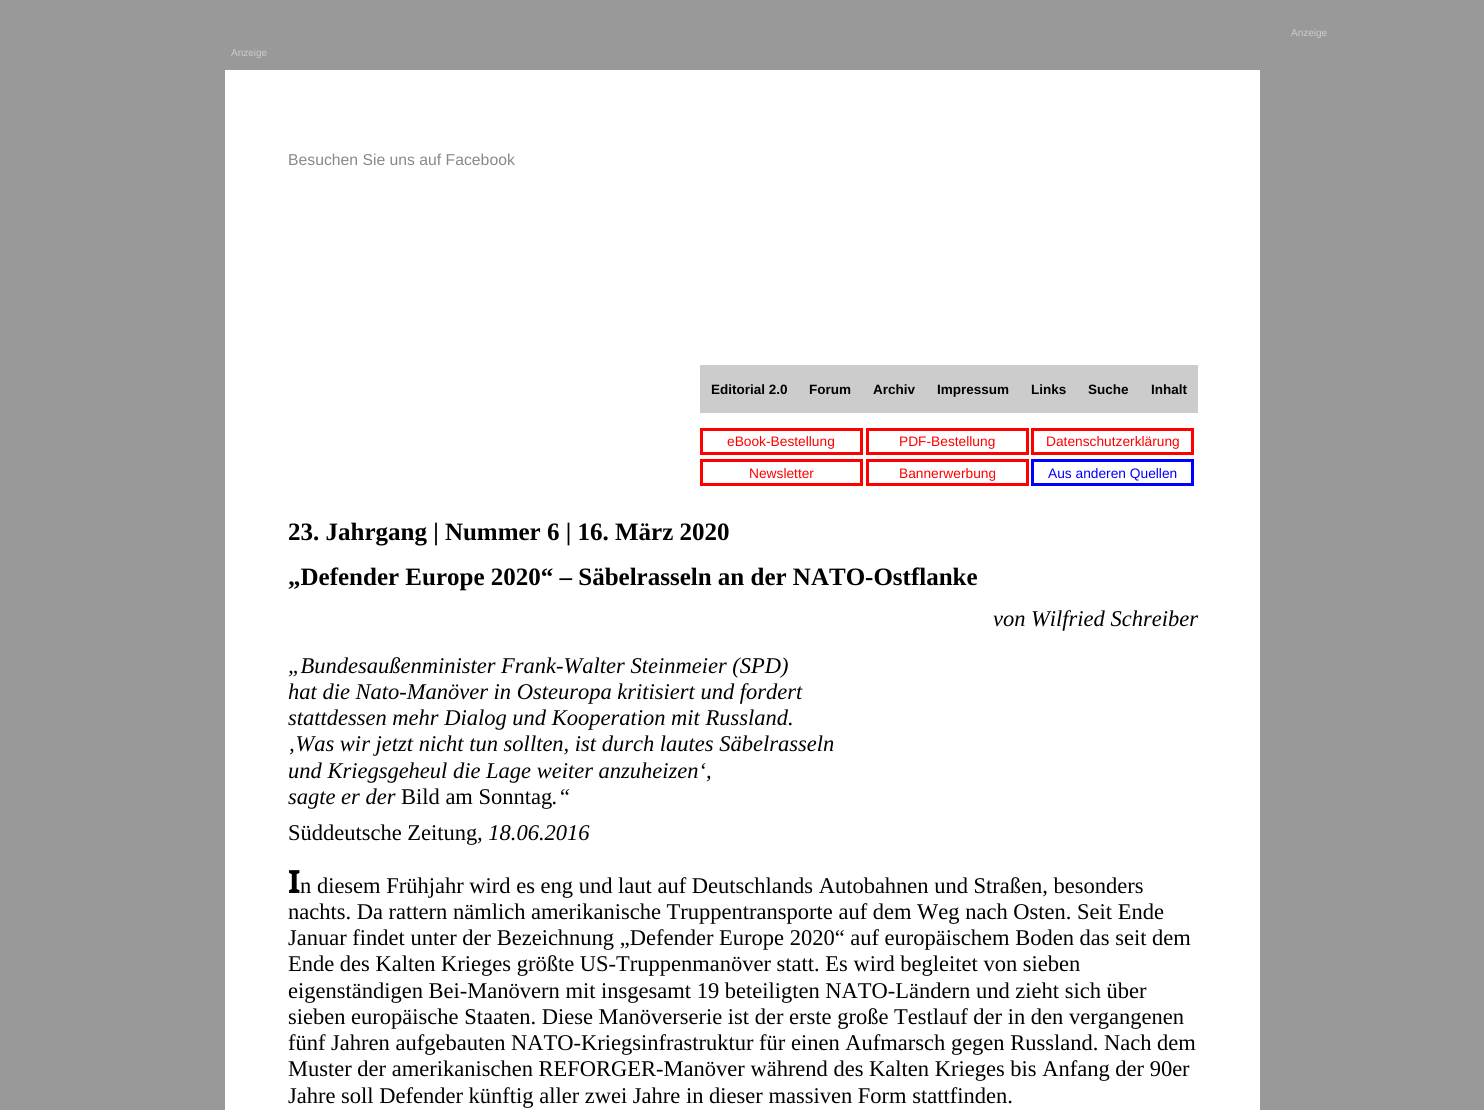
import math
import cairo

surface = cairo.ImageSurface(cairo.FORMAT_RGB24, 1484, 1110)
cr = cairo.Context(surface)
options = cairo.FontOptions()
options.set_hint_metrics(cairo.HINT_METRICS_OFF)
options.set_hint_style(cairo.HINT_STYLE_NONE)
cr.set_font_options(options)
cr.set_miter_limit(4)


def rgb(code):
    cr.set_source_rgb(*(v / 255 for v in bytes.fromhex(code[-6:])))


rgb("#999999")
cr.paint()
rgb("#ffffff")
cr.rectangle(225, 70, 1035, 1040)
cr.fill()
rgb("#cccccc")
cr.rectangle(700, 365, 498, 48)
cr.fill()
cr.rectangle(701.5, 429.5, 160, 24)
rgb("#ff0000")
cr.set_line_width(3)
cr.stroke()
cr.rectangle(867.5, 429.5, 160, 24)
cr.stroke()
cr.rectangle(1032.5, 429.5, 160, 24)
cr.stroke()
cr.rectangle(701.5, 460.5, 160, 24)
cr.stroke()
cr.rectangle(867.5, 460.5, 160, 24)
cr.stroke()
cr.rectangle(1032.5, 460.5, 160, 24)
rgb("#0000ff")
cr.stroke()
cr.select_font_face("Liberation Sans")
cr.set_font_size(10)
rgb("#cccccc")
cr.move_to(1291, 36)
cr.show_text("Anzeige")
cr.move_to(231, 56)
cr.show_text("Anzeige")
cr.set_font_size(15.75)
rgb("#888888")
cr.move_to(288, 165)
cr.show_text("Besuchen Sie uns auf Facebook")
cr.select_font_face("Liberation Sans", cairo.FONT_SLANT_NORMAL, cairo.FONT_WEIGHT_BOLD)
cr.set_font_size(13.5)
rgb("#000000")
for x, y, s in [
    (711, 394, "Editorial 2.0"),
    (809, 394, "Forum"),
    (873, 394, "Archiv"),
    (937, 394, "Impressum"),
    (1031, 394, "Links"),
    (1088, 394, "Suche"),
    (1151, 394, "Inhalt"),
]:
    cr.move_to(x, y)
    cr.show_text(s)
cr.select_font_face("Liberation Sans")
cr.set_font_size(13.75)
rgb("#ff0000")
for x, y, s in [
    (727, 446, "eBook-Bestellung"),
    (899, 446, "PDF-Bestellung"),
    (1046, 446, "Datenschutzerklärung"),
    (749, 478, "Newsletter"),
    (899, 478, "Bannerwerbung"),
]:
    cr.move_to(x, y)
    cr.show_text(s)
rgb("#0000ff")
cr.move_to(1048, 478)
cr.show_text("Aus anderen Quellen")
cr.select_font_face("Liberation Serif", cairo.FONT_SLANT_NORMAL, cairo.FONT_WEIGHT_BOLD)
cr.set_font_size(25)
rgb("#000000")
cr.move_to(288, 540)
cr.show_text("23. Jahrgang | Nummer 6 | 16. März 2020")
cr.move_to(288, 585)
cr.show_text("„Defender Europe 2020“ – Säbelrasseln an der NATO-Ostflanke")
cr.select_font_face("Liberation Serif", cairo.FONT_SLANT_ITALIC)
cr.set_font_size(22.5)
for x, y, s in [
    (993, 626, "von Wilfried Schreiber"),
    (288, 673, "„Bundesaußenminister Frank-Walter Steinmeier (SPD)"),
    (288, 699, "hat die Nato-Manöver in Osteuropa kritisiert und fordert"),
    (288, 725, "stattdessen mehr Dialog und Kooperation mit Russland."),
    (288, 751, "‚Was wir jetzt nicht tun sollten, ist durch lautes Säbelrasseln"),
    (288, 778, "und Kriegsgeheul die Lage weiter anzuheizen‘,"),
    (288, 804, "sagte er der"),
]:
    cr.move_to(x, y)
    cr.show_text(s)
cr.select_font_face("Liberation Serif")
cr.move_to(401, 804)
cr.show_text("Bild am Sonntag")
cr.select_font_face("Liberation Serif", cairo.FONT_SLANT_ITALIC)
cr.move_to(552, 804)
cr.show_text(".“")
cr.select_font_face("Liberation Serif")
cr.move_to(288, 840)
cr.show_text("Süddeutsche Zeitung")
cr.select_font_face("Liberation Serif", cairo.FONT_SLANT_ITALIC)
cr.move_to(477, 840)
cr.show_text(", 18.06.2016")
cr.select_font_face("Noto Sans", cairo.FONT_SLANT_NORMAL, cairo.FONT_WEIGHT_BOLD)
cr.set_font_size(32)
cr.move_to(288, 893)
cr.show_text("I")
cr.select_font_face("Liberation Serif")
cr.set_font_size(22.5)
for x, y, s in [
    (300, 893, "n diesem Frühjahr wird es eng und laut auf Deutschlands Autobahnen und Straßen, besonders"),
    (288, 919, "nachts. Da rattern nämlich amerikanische Truppentransporte auf dem Weg nach Osten. Seit Ende"),
    (288, 945, "Januar findet unter der Bezeichnung „Defender Europe 2020“ auf europäischem Boden das seit dem"),
    (288, 971, "Ende des Kalten Krieges größte US-Truppenmanöver statt. Es wird begleitet von sieben"),
    (288, 998, "eigenständigen Bei-Manövern mit insgesamt 19 beteiligten NATO-Ländern und zieht sich über"),
    (288, 1024, "sieben europäische Staaten. Diese Manöverserie ist der erste große Testlauf der in den vergangenen"),
    (288, 1050, "fünf Jahren aufgebauten NATO-Kriegsinfrastruktur für einen Aufmarsch gegen Russland. Nach dem"),
    (288, 1076, "Muster der amerikanischen REFORGER-Manöver während des Kalten Krieges bis Anfang der 90er"),
    (288, 1103, "Jahre soll Defender künftig aller zwei Jahre in dieser massiven Form stattfinden."),
]:
    cr.move_to(x, y)
    cr.show_text(s)
surface.write_to_png("page.png")
